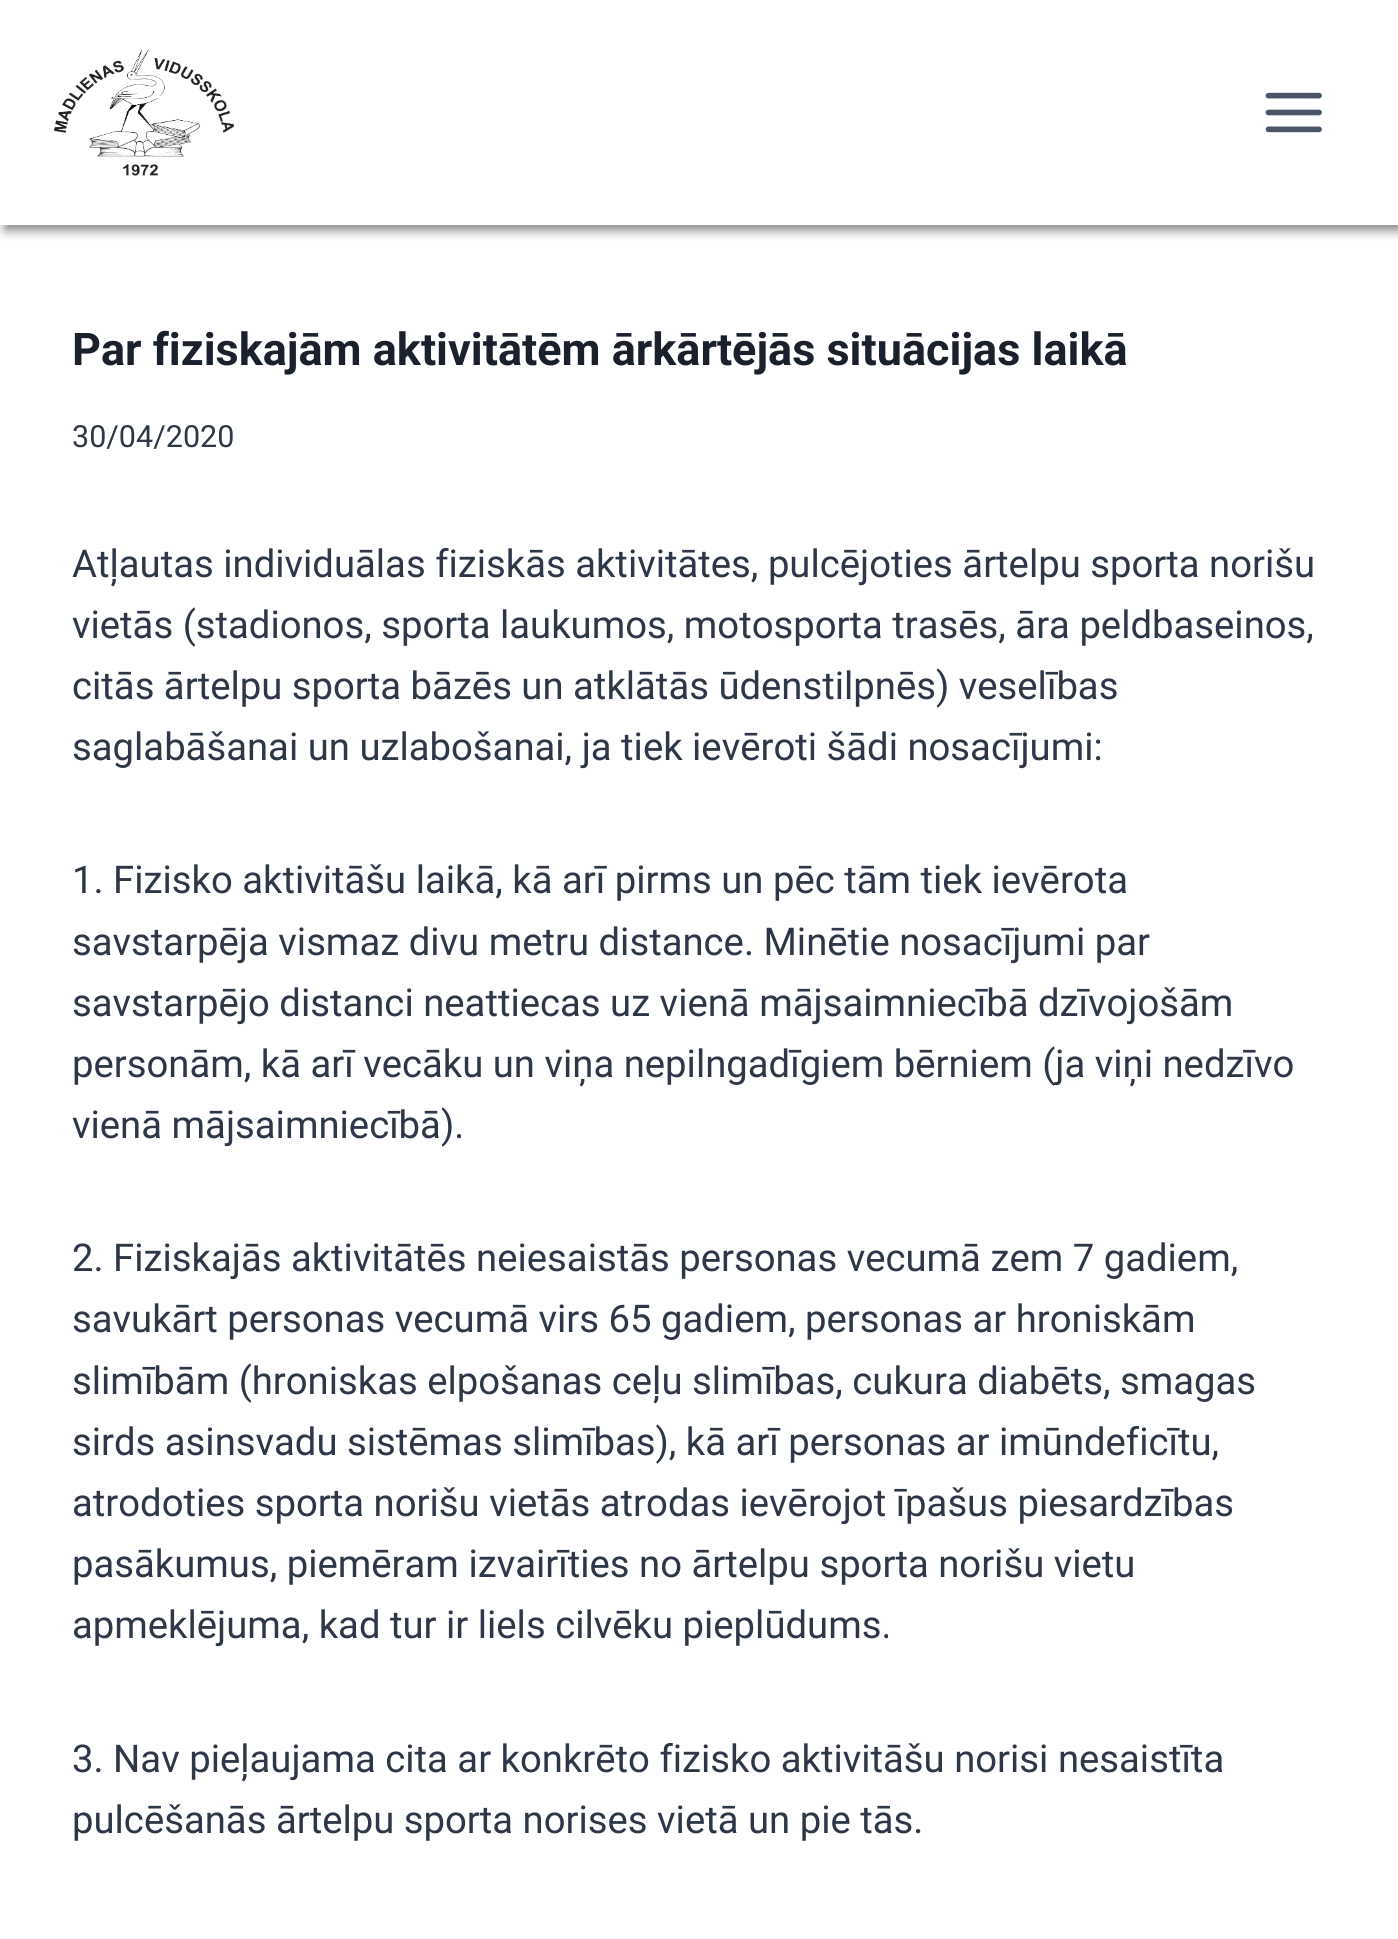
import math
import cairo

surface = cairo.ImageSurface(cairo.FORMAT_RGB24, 1398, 1939)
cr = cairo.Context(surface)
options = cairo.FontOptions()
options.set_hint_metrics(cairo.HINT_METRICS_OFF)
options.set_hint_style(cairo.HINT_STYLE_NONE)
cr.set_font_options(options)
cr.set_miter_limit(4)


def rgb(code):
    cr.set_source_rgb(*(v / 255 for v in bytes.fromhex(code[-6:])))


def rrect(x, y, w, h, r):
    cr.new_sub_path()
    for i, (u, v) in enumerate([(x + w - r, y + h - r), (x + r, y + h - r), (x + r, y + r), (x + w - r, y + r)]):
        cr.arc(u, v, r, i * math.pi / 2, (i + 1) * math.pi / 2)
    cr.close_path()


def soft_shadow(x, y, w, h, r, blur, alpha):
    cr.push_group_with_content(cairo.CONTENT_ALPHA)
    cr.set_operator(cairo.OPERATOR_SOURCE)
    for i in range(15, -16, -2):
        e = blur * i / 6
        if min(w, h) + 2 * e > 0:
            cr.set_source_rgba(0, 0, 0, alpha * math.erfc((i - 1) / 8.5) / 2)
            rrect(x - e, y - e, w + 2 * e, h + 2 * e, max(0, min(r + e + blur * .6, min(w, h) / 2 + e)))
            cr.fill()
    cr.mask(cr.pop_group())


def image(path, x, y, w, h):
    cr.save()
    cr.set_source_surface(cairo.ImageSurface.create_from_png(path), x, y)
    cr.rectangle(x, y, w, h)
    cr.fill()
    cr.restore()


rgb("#ffffff")
cr.paint()
cr.save()
cr.rectangle(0, 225, 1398, 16)
cr.clip()
rgb("#808080")
soft_shadow(5, 5, 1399, 225, 0, 5.5, 1)
cr.restore()
image("img/1.png", 54, 49, 180, 127)
image("img/2.png", 1265, 92, 57, 41)
cr.select_font_face("Roboto", cairo.FONT_SLANT_NORMAL, cairo.FONT_WEIGHT_BOLD)
cr.set_font_size(45)
rgb("#1a202c")
cr.move_to(72, 365)
cr.show_text("Par fiziskajām aktivitātēm ārkārtējās situācijas laikā")
cr.select_font_face("Roboto")
cr.set_font_size(30.5)
rgb("#2d3748")
cr.move_to(72, 447)
cr.show_text("30/04/2020")
cr.set_font_size(38.25)
for x, y, s in [
    (72, 577, "Atļautas individuālas fiziskās aktivitātes, pulcējoties ārtelpu sporta norišu"),
    (72, 638, "vietās (stadionos, sporta laukumos, motosporta trasēs, āra peldbaseinos,"),
    (72, 699, "citās ārtelpu sporta bāzēs un atklātās ūdenstilpnēs) veselības"),
    (72, 760, "saglabāšanai un uzlabošanai, ja tiek ievēroti šādi nosacījumi:"),
    (72, 893, "1. Fizisko aktivitāšu laikā, kā arī pirms un pēc tām tiek ievērota"),
    (72, 955, "savstarpēja vismaz divu metru distance. Minētie nosacījumi par"),
    (72, 1016, "savstarpējo distanci neattiecas uz vienā mājsaimniecībā dzīvojošām"),
    (72, 1077, "personām, kā arī vecāku un viņa nepilngadīgiem bērniem (ja viņi nedzīvo"),
    (72, 1138, "vienā mājsaimniecībā)."),
    (72, 1271, "2. Fiziskajās aktivitātēs neiesaistās personas vecumā zem 7 gadiem,"),
    (72, 1332, "savukārt personas vecumā virs 65 gadiem, personas ar hroniskām"),
    (72, 1394, "slimībām (hroniskas elpošanas ceļu slimības, cukura diabēts, smagas"),
    (72, 1455, "sirds asinsvadu sistēmas slimības), kā arī personas ar imūndeficītu,"),
    (72, 1516, "atrodoties sporta norišu vietās atrodas ievērojot īpašus piesardzības"),
    (72, 1577, "pasākumus, piemēram izvairīties no ārtelpu sporta norišu vietu"),
    (72, 1638, "apmeklējuma, kad tur ir liels cilvēku pieplūdums."),
    (72, 1772, "3. Nav pieļaujama cita ar konkrēto fizisko aktivitāšu norisi nesaistīta"),
    (72, 1833, "pulcēšanās ārtelpu sporta norises vietā un pie tās."),
]:
    cr.move_to(x, y)
    cr.show_text(s)
surface.write_to_png("page.png")
